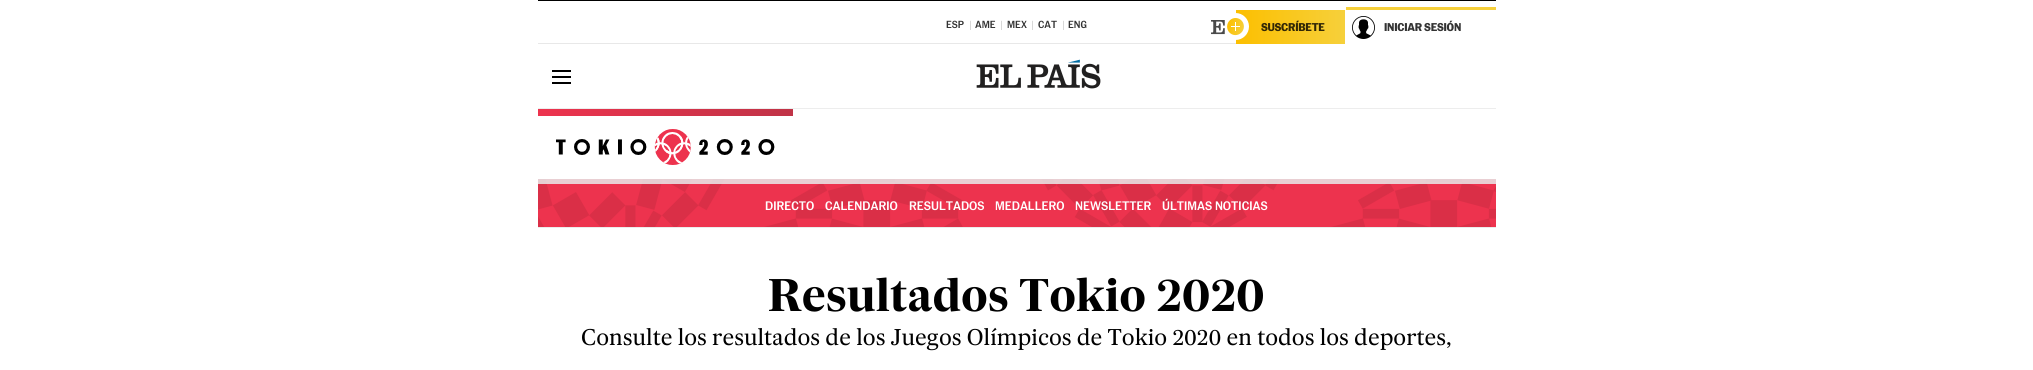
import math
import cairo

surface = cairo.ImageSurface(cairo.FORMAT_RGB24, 2033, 370)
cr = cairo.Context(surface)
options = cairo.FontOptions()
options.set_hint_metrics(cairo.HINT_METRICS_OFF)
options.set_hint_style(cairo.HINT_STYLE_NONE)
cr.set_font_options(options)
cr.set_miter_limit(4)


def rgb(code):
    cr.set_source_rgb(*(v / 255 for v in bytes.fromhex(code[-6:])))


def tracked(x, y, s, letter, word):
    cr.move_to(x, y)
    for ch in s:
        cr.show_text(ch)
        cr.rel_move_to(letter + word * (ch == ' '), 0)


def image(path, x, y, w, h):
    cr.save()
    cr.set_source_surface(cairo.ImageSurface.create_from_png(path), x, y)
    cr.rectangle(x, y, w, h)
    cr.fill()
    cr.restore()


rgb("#ffffff")
cr.paint()
for x, y, w, h, color in [
    (538, 0, 958, 1, "#000000"),
    (538, 227, 958, 1, "#ebebeb"),
    (538, 43, 698, 1, "#e8e8e8"),
]:
    rgb(color)
    cr.rectangle(x, y, w, h)
    cr.fill()
gradient = cairo.LinearGradient(1345, 27, 1236, 27)
gradient.add_color_stop_rgba(0, 0.965, 0.816, 0.231, 1)
gradient.add_color_stop_rgba(1, 0.988, 0.749, 0, 1)
cr.set_source(gradient)
cr.rectangle(1236, 10, 109, 34)
cr.fill()
image("img/1.png", 1211, 13, 38, 27)
image("img/2.png", 1352, 16, 23, 23)
for x, y, w, h, color in [
    (1346, 7, 150, 3, "#f6d03b"),
    (552, 70, 19, 2, "#000000"),
    (552, 76, 19, 2, "#000000"),
    (552, 82, 19, 2, "#000000"),
]:
    rgb(color)
    cr.rectangle(x, y, w, h)
    cr.fill()
image("img/3.png", 976, 59, 125, 30)
rgb("#ededed")
cr.rectangle(538, 108, 958, 1)
cr.fill()
gradient = cairo.LinearGradient(793, 112, 538, 113)
gradient.add_color_stop_rgba(0, 0.753, 0.2, 0.278, 1)
gradient.add_color_stop_rgba(1, 0.929, 0.2, 0.306, 1)
cr.set_source(gradient)
cr.rectangle(538, 109, 255, 7)
cr.fill()
image("img/4.png", 556, 129, 219, 36)
image("img/5.png", 538, 179, 958, 48)
cr.set_source_rgba(0.91, 0.91, 0.91, 0.86)
cr.rectangle(538, 179, 958, 5)
cr.fill()
cr.select_font_face("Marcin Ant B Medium")
cr.set_font_size(10)
rgb("#333333")
cr.move_to(946, 28)
cr.show_text("ESP")
cr.select_font_face("Marcin Ant B")
rgb("#c9c9c9")
cr.move_to(969, 28)
cr.show_text("|")
cr.select_font_face("Marcin Ant B Medium")
rgb("#333333")
cr.move_to(975, 28)
cr.show_text("AME")
cr.select_font_face("Marcin Ant B")
rgb("#c9c9c9")
cr.move_to(1000, 28)
cr.show_text("|")
cr.select_font_face("Marcin Ant B Medium")
rgb("#333333")
cr.move_to(1007, 28)
cr.show_text("MEX")
cr.select_font_face("Marcin Ant B")
rgb("#c9c9c9")
cr.move_to(1031, 28)
cr.show_text("|")
cr.select_font_face("Marcin Ant B Medium")
rgb("#333333")
cr.move_to(1038, 28)
cr.show_text("CAT")
cr.select_font_face("Marcin Ant B")
rgb("#c9c9c9")
cr.move_to(1062, 28)
cr.show_text("|")
cr.select_font_face("Marcin Ant B Medium")
rgb("#333333")
cr.move_to(1068, 28)
cr.show_text("ENG")
cr.select_font_face("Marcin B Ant", cairo.FONT_SLANT_NORMAL, cairo.FONT_WEIGHT_BOLD)
cr.set_font_size(11)
rgb("#322806")
tracked(1261, 31, "SUSCRÍBETE", -0.25, 0)
rgb("#333333")
tracked(1384, 31, "INICIAR SESIÓN", -0.25, 0)
cr.select_font_face("Marcin Ant B Medium")
cr.set_font_size(12)
rgb("#ffffff")
for x, y, s in [
    (765, 210, "DIRECTO"),
    (825, 210, "CALENDARIO"),
    (909, 210, "RESULTADOS"),
    (995, 210, "MEDALLERO"),
    (1075, 210, "NEWSLETTER"),
    (1162, 210, "ÚLTIMAS NOTICIAS"),
]:
    cr.move_to(x, y)
    cr.show_text(s)
cr.select_font_face("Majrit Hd", cairo.FONT_SLANT_NORMAL, cairo.FONT_WEIGHT_BOLD)
cr.set_font_size(44)
rgb("#000000")
cr.move_to(768, 311)
cr.show_text("Resultados Tokio 2020")
cr.select_font_face("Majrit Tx")
cr.set_font_size(22)
cr.move_to(581, 345)
cr.show_text("Consulte los resultados de los Juegos Olímpicos de Tokio 2020 en todos los deportes,")
surface.write_to_png("page.png")
